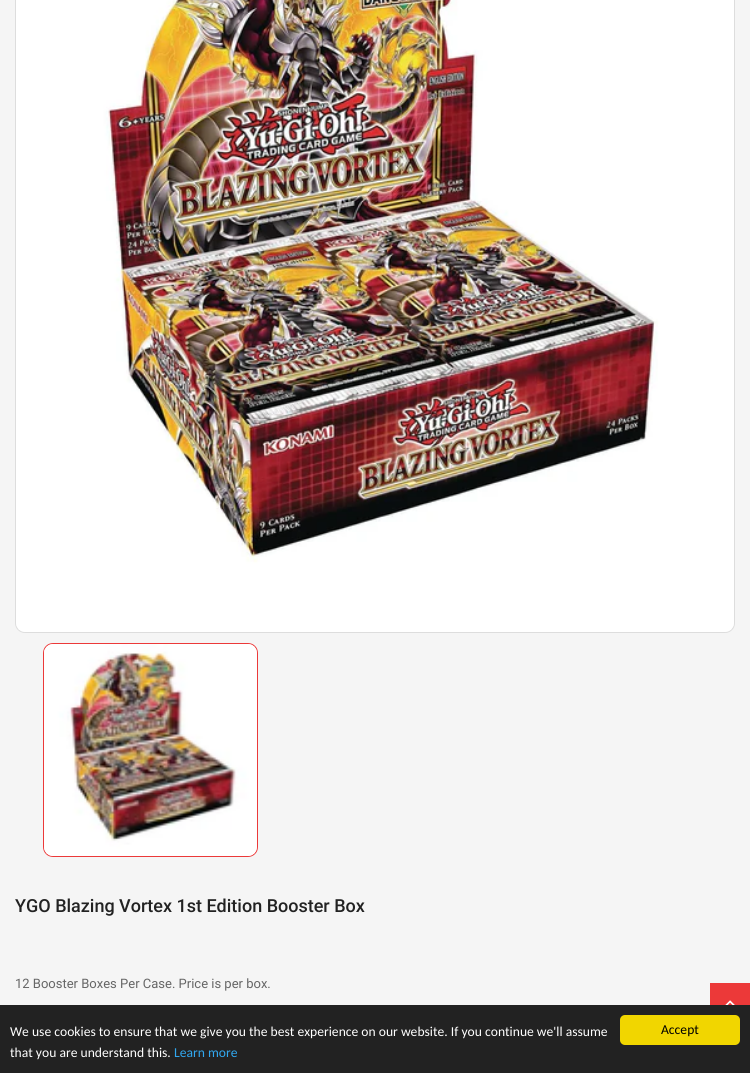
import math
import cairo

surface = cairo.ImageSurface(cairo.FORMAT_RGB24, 750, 1073)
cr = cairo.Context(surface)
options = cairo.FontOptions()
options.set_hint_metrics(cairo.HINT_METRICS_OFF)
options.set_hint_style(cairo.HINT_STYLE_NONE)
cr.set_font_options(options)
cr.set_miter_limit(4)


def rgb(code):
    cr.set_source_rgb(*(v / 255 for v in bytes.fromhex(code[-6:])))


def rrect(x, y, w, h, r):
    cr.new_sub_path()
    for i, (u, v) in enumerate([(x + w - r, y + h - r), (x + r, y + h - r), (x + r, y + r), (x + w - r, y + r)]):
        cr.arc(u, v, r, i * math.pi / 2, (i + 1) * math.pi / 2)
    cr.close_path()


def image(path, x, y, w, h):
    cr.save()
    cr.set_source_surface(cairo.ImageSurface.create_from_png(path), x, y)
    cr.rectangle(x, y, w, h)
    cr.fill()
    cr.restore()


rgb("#f5f5f5")
cr.paint()
rrect(15.5, -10.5, 719, 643, 9.5)
rgb("#dddddd")
cr.set_line_width(1)
cr.stroke()
image("img/1.png", 16, 0, 718, 632)
rgb("#ffffff")
rrect(43.5, 643.5, 214, 213, 9.5)
cr.fill_preserve()
rgb("#ec3939")
cr.stroke()
image("img/2.png", 44, 644, 213, 212)
cr.rectangle(710, 983, 40, 22)
cr.fill()
image("img/3.png", 725, 1000, 10, 5)
rgb("#222222")
cr.rectangle(0, 1005, 750, 68)
cr.fill()
rgb("#f1d600")
rrect(620, 1015, 120, 30, 5)
cr.fill()
cr.select_font_face("Roboto Medium")
cr.set_font_size(18)
rgb("#222222")
cr.move_to(15, 912)
cr.show_text("YGO Blazing Vortex 1st Edition Booster Box")
cr.select_font_face("Roboto")
cr.set_font_size(13)
rgb("#666666")
cr.move_to(15, 988)
cr.show_text("12 Booster Boxes Per Case. Price is per box.")
cr.select_font_face("Carlito")
cr.set_font_size(13.6)
rgb("#ffffff")
cr.move_to(10, 1036)
cr.show_text("We use cookies to ensure that we give you the best experience on our website. If you continue we'll assume")
cr.move_to(10, 1057)
cr.show_text("that you are understand this.")
rgb("#31a8f0")
cr.move_to(174, 1057)
cr.show_text("Learn more")
rgb("#000000")
cr.move_to(661, 1034)
cr.show_text("Accept")
surface.write_to_png("page.png")
